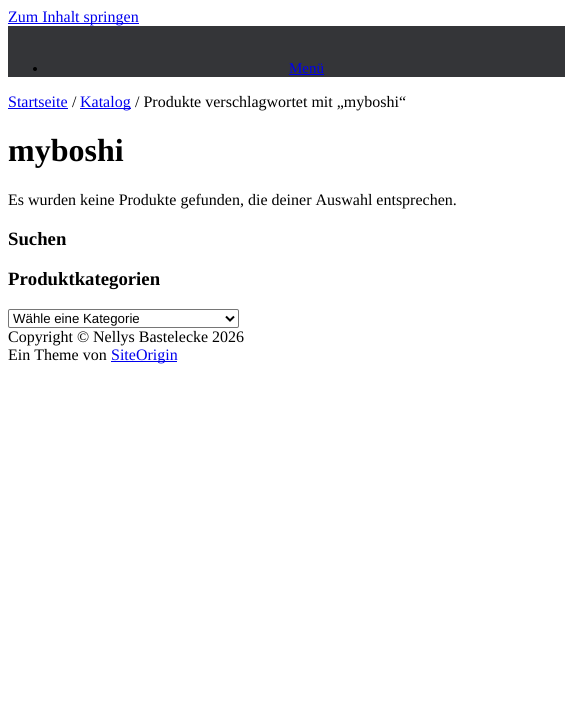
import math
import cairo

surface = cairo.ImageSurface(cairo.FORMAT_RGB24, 573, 723)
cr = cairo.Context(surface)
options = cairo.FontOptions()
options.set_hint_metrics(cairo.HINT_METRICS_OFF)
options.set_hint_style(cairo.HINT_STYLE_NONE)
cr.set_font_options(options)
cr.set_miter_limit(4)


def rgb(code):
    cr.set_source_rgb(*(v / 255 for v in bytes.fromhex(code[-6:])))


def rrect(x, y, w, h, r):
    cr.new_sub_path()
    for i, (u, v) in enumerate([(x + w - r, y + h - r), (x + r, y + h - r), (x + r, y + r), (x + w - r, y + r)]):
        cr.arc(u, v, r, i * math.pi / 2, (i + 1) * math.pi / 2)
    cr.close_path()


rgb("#ffffff")
cr.paint()
rgb("#0000ee")
cr.rectangle(8, 23, 131, 1)
cr.fill()
rgb("#343538")
cr.rectangle(8, 26, 557, 51)
cr.fill()
rgb("#000000")
cr.arc(35, 69, 2, 0, 2 * math.pi)
cr.fill()
for x, y, w, h, color in [
    (289, 74, 35, 1, "#0000ee"),
    (8, 108, 60, 1, "#0000ee"),
    (80, 108, 51, 1, "#0000ee"),
]:
    rgb(color)
    cr.rectangle(x, y, w, h)
    cr.fill()
rrect(8.5, 309.5, 230, 18, 1.5)
rgb("#767676")
cr.set_line_width(1)
cr.stroke()
cr.new_path()
cr.move_to(226, 316.5)
cr.line_to(230, 320.5)
cr.line_to(234, 316.5)
rgb("#000000")
cr.set_line_width(2)
cr.stroke()
rgb("#0000ee")
cr.rectangle(111, 361, 66, 1)
cr.fill()
cr.select_font_face("Liberation Serif")
cr.set_font_size(16)
cr.move_to(8, 22)
cr.show_text("Zum Inhalt springen")
cr.set_font_size(15)
cr.move_to(289, 73)
cr.show_text("Menü")
cr.set_font_size(16)
cr.move_to(8, 107)
cr.show_text("Startseite")
rgb("#000000")
cr.move_to(72, 107)
cr.show_text("/")
rgb("#0000ee")
cr.move_to(80, 107)
cr.show_text("Katalog")
rgb("#000000")
cr.move_to(135, 107)
cr.show_text("/ Produkte verschlagwortet mit „myboshi“")
cr.select_font_face("Liberation Serif", cairo.FONT_SLANT_NORMAL, cairo.FONT_WEIGHT_BOLD)
cr.set_font_size(32)
cr.move_to(8, 161)
cr.show_text("myboshi")
cr.select_font_face("Liberation Serif")
cr.set_font_size(16)
cr.move_to(8, 205)
cr.show_text("Es wurden keine Produkte gefunden, die deiner Auswahl entsprechen.")
cr.select_font_face("Liberation Serif", cairo.FONT_SLANT_NORMAL, cairo.FONT_WEIGHT_BOLD)
cr.set_font_size(18.75)
cr.move_to(8, 245)
cr.show_text("Suchen")
cr.move_to(8, 285)
cr.show_text("Produktkategorien")
cr.select_font_face("Liberation Sans")
cr.set_font_size(13.25)
cr.move_to(13, 323)
cr.show_text("Wähle eine Kategorie")
cr.select_font_face("Liberation Serif")
cr.set_font_size(16)
cr.move_to(8, 342)
cr.show_text("Copyright © Nellys Bastelecke 2026")
cr.move_to(8, 360)
cr.show_text("Ein Theme von")
rgb("#0000ee")
cr.move_to(111, 360)
cr.show_text("SiteOrigin")
surface.write_to_png("page.png")
